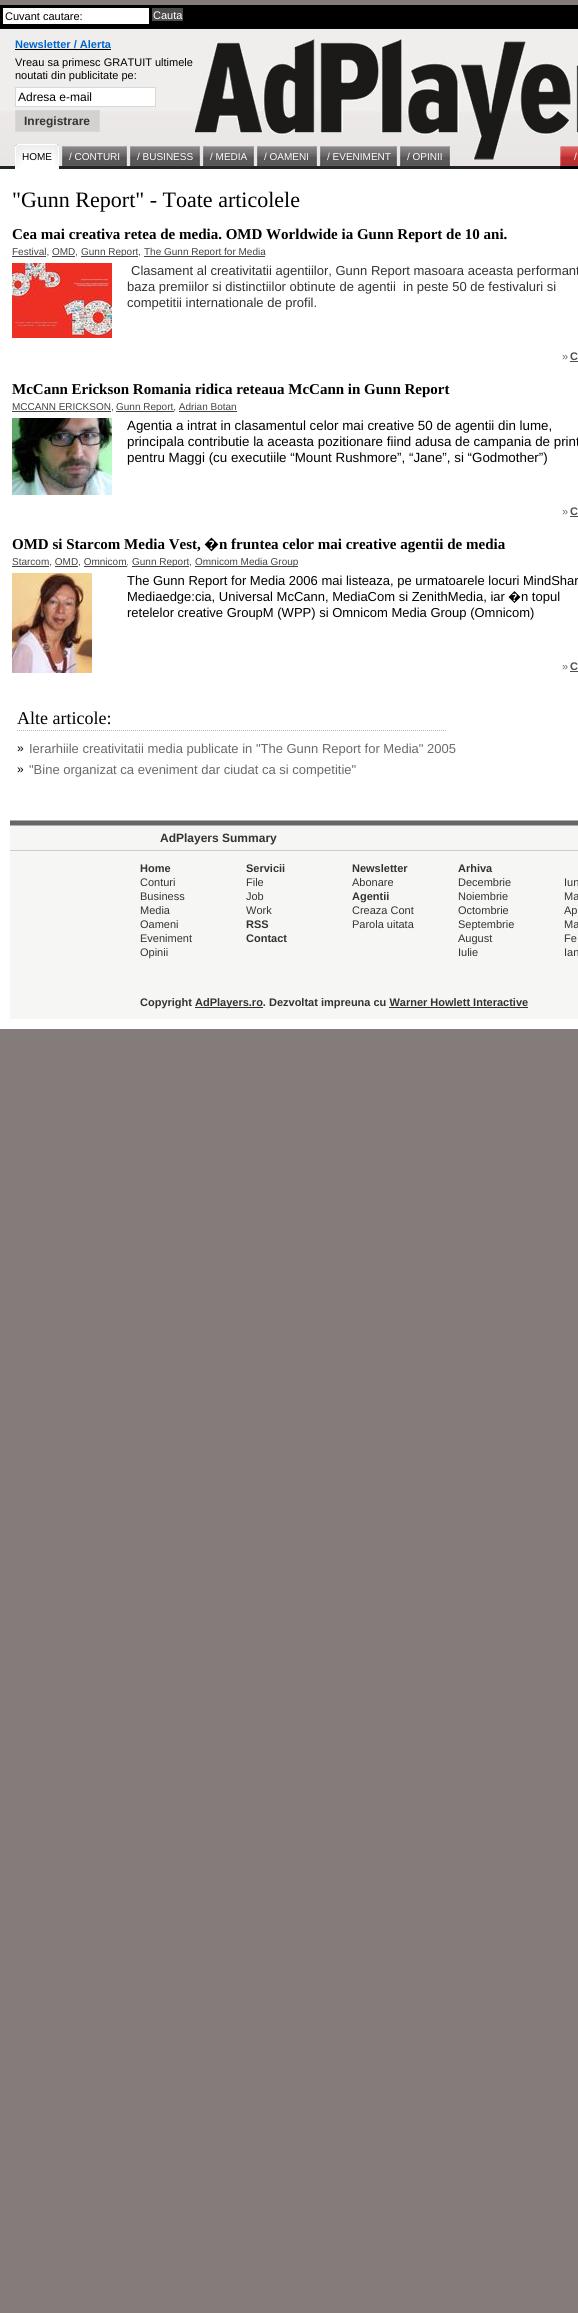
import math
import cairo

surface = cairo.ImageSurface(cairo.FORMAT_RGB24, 578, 2313)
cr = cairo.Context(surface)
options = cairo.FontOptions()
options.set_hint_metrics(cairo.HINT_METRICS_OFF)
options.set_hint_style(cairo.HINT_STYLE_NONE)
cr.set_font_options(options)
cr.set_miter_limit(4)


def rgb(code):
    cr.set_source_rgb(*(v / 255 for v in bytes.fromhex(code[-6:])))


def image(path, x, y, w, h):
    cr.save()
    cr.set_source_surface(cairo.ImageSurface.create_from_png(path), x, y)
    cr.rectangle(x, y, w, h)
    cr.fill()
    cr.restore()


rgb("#837c7a")
cr.paint()
rgb("#ffffff")
cr.rectangle(0, 169, 578, 860)
cr.fill()
rgb("#f0eeed")
cr.rectangle(0, 29, 578, 82)
cr.fill()
image("img/1.png", 0, 111, 578, 58)
for x, y, w, h, color in [
    (0, 5, 578, 24, "#000000"),
    (3, 8, 146, 16, "#ffffff"),
    (152, 8, 31, 13, "#4c4c4c"),
]:
    rgb(color)
    cr.rectangle(x, y, w, h)
    cr.fill()
image("img/2.png", 195, 39, 383, 121)
rgb("#000000")
cr.rectangle(15, 49, 96, 1)
cr.fill()
rgb("#ffffff")
cr.rectangle(15.5, 87.5, 140, 19)
cr.fill_preserve()
rgb("#d9d8d6")
cr.set_line_width(1)
cr.stroke()
rgb("#d3d2d1")
cr.rectangle(15.5, 110.5, 84, 21)
cr.fill_preserve()
rgb("#d9d8d6")
cr.stroke()
image("img/3.png", 15, 144, 44, 25)
image("img/4.png", 55, 144, 4, 24)
image("img/5.png", 62, 146, 63, 20)
image("img/6.png", 125, 146, 2, 20)
image("img/7.png", 130, 146, 68, 20)
image("img/6.png", 198, 146, 2, 20)
image("img/8.png", 203, 146, 49, 20)
image("img/6.png", 252, 146, 2, 20)
image("img/9.png", 257, 146, 58, 20)
image("img/6.png", 315, 146, 2, 20)
image("img/10.png", 320, 146, 75, 20)
image("img/6.png", 395, 146, 2, 20)
image("img/11.png", 400, 146, 48, 20)
image("img/6.png", 448, 146, 2, 20)
image("img/12.png", 560, 146, 18, 23)
for x, y, w, h, color in [
    (12, 256, 34, 1, "#444444"),
    (81, 256, 57, 1, "#444444"),
    (144, 256, 121, 1, "#444444"),
    (52, 256, 23, 1, "#444444"),
]:
    rgb(color)
    cr.rectangle(x, y, w, h)
    cr.fill()
image("img/13.png", 12, 263, 100, 75)
for x, y, w, h, color in [
    (570, 361, 8, 1, "#4d4d4d"),
    (12, 411, 99, 1, "#444444"),
    (116, 411, 58, 1, "#444444"),
    (179, 411, 58, 1, "#444444"),
]:
    rgb(color)
    cr.rectangle(x, y, w, h)
    cr.fill()
image("img/14.png", 12, 418, 100, 77)
for x, y, w, h, color in [
    (570, 516, 8, 1, "#4d4d4d"),
    (12, 566, 37, 1, "#444444"),
    (132, 566, 57, 1, "#444444"),
    (195, 566, 103, 1, "#444444"),
    (55, 566, 23, 1, "#444444"),
    (84, 566, 43, 1, "#444444"),
]:
    rgb(color)
    cr.rectangle(x, y, w, h)
    cr.fill()
image("img/15.png", 12, 573, 80, 100)
rgb("#4d4d4d")
cr.rectangle(570, 671, 8, 1)
cr.fill()
cr.new_path()
cr.move_to(17, 730.5)
cr.line_to(446, 730.5)
rgb("#b7b7b7")
cr.set_dash([1, 1])
cr.stroke()
for x, y, w, h, color in [
    (10, 826, 568, 193, "#f6f6f4"),
    (10, 821, 568, 4, "#666666"),
    (10, 820, 568, 1, "#afafad"),
    (10, 825, 568, 1, "#afafad"),
    (10, 850, 568, 1, "#cccccc"),
    (195, 1007, 68, 1, "#333333"),
    (389, 1007, 139, 1, "#333333"),
]:
    rgb(color)
    cr.rectangle(x, y, w, h)
    cr.fill()
cr.select_font_face("Liberation Sans")
cr.set_font_size(11)
rgb("#000000")
cr.move_to(5, 20)
cr.show_text("Cuvant cautare:")
rgb("#ffffff")
cr.move_to(153, 19)
cr.show_text("Cauta")
cr.select_font_face("Liberation Sans", cairo.FONT_SLANT_NORMAL, cairo.FONT_WEIGHT_BOLD)
rgb("#0066cc")
cr.move_to(15, 48)
cr.show_text("Newsletter / Alerta")
cr.select_font_face("Liberation Sans")
rgb("#000000")
cr.move_to(15, 66)
cr.show_text("Vreau sa primesc GRATUIT ultimele")
cr.move_to(15, 79)
cr.show_text("noutati din publicitate pe:")
cr.set_font_size(12)
cr.move_to(18, 101)
cr.show_text("Adresa e-mail")
cr.select_font_face("Liberation Sans", cairo.FONT_SLANT_NORMAL, cairo.FONT_WEIGHT_BOLD)
rgb("#333333")
cr.move_to(24, 125)
cr.show_text("Inregistrare")
cr.select_font_face("Liberation Sans")
cr.set_font_size(10)
rgb("#000000")
cr.move_to(22, 160)
cr.show_text("HOME")
rgb("#ffffff")
for x, y, s in [
    (69, 160, "/ CONTURI"),
    (137, 160, "/ BUSINESS"),
    (210, 160, "/ MEDIA"),
    (264, 160, "/ OAMENI"),
    (327, 160, "/ EVENIMENT"),
    (407, 160, "/ OPINII"),
    (574, 160, "/"),
]:
    cr.move_to(x, y)
    cr.show_text(s)
cr.select_font_face("Liberation Serif")
cr.set_font_size(22)
rgb("#000000")
cr.move_to(12, 207)
cr.show_text("\"Gunn Report\" - Toate articolele")
cr.select_font_face("Liberation Serif", cairo.FONT_SLANT_NORMAL, cairo.FONT_WEIGHT_BOLD)
cr.set_font_size(15)
cr.move_to(12, 239)
cr.show_text("Cea mai creativa retea de media. OMD Worldwide ia Gunn Report de 10 ani.")
cr.select_font_face("Liberation Sans")
cr.set_font_size(10)
rgb("#444444")
for x, y, s in [
    (12, 255, "Festival, OMD,"),
    (81, 255, "Gunn Report,"),
    (144, 255, "The Gunn Report for Media"),
]:
    cr.move_to(x, y)
    cr.show_text(s)
cr.set_font_size(13)
rgb("#333333")
for x, y, s in [
    (131, 275, "Clasament al creativitatii agentiilor, Gunn Report masoara aceasta performant"),
    (127, 291, "baza premiilor si distinctiilor obtinute de agentii  in peste 50 de festivaluri si"),
    (127, 307, "competitii internationale de profil."),
]:
    cr.move_to(x, y)
    cr.show_text(s)
cr.set_font_size(11)
rgb("#6a6a6a")
cr.move_to(562, 360)
cr.show_text("»")
cr.select_font_face("Liberation Sans", cairo.FONT_SLANT_NORMAL, cairo.FONT_WEIGHT_BOLD)
rgb("#4d4d4d")
cr.move_to(570, 360)
cr.show_text("C")
cr.select_font_face("Liberation Serif", cairo.FONT_SLANT_NORMAL, cairo.FONT_WEIGHT_BOLD)
cr.set_font_size(15)
rgb("#000000")
cr.move_to(12, 394)
cr.show_text("McCann Erickson Romania ridica reteaua McCann in Gunn Report")
cr.select_font_face("Liberation Sans")
cr.set_font_size(10)
rgb("#444444")
cr.move_to(12, 410)
cr.show_text("MCCANN ERICKSON,")
cr.move_to(116, 410)
cr.show_text("Gunn Report, Adrian Botan")
cr.set_font_size(13.35)
rgb("#000000")
for x, y, s in [
    (127, 430, "Agentia a intrat in clasamentul celor mai creative 50 de agentii din lume,"),
    (127, 446, "principala contributie la aceasta pozitionare fiind adusa de campania de print"),
    (127, 462, "pentru Maggi (cu executiile “Mount Rushmore”, “Jane”, si “Godmother”)"),
]:
    cr.move_to(x, y)
    cr.show_text(s)
cr.set_font_size(11)
rgb("#6a6a6a")
cr.move_to(562, 515)
cr.show_text("»")
cr.select_font_face("Liberation Sans", cairo.FONT_SLANT_NORMAL, cairo.FONT_WEIGHT_BOLD)
rgb("#4d4d4d")
cr.move_to(570, 515)
cr.show_text("C")
cr.select_font_face("Liberation Serif", cairo.FONT_SLANT_NORMAL, cairo.FONT_WEIGHT_BOLD)
cr.set_font_size(15)
rgb("#000000")
cr.move_to(12, 549)
cr.show_text("OMD si Starcom Media Vest,")
cr.select_font_face("Noto Sans", cairo.FONT_SLANT_NORMAL, cairo.FONT_WEIGHT_BOLD)
cr.move_to(204, 549)
cr.show_text("�")
cr.select_font_face("Liberation Serif", cairo.FONT_SLANT_NORMAL, cairo.FONT_WEIGHT_BOLD)
cr.move_to(219, 549)
cr.show_text("n fruntea celor mai creative agentii de media")
cr.select_font_face("Liberation Sans")
cr.set_font_size(10)
rgb("#444444")
for x, y, s in [
    (12, 565, "Starcom, OMD, Omnicom,"),
    (132, 565, "Gunn Report,"),
    (195, 565, "Omnicom Media Group"),
]:
    cr.move_to(x, y)
    cr.show_text(s)
cr.set_font_size(13)
rgb("#000000")
cr.move_to(127, 585)
cr.show_text("The Gunn Report for Media 2006 mai listeaza, pe urmatoarele locuri MindShar")
cr.move_to(127, 601)
cr.show_text("Mediaedge:cia, Universal McCann, MediaCom si ZenithMedia, iar")
cr.select_font_face("Noto Sans")
cr.move_to(508, 601)
cr.show_text("�")
cr.select_font_face("Liberation Sans")
cr.move_to(521, 601)
cr.show_text("n topul")
cr.move_to(127, 617)
cr.show_text("retelelor creative GroupM (WPP) si Omnicom Media Group (Omnicom)")
cr.set_font_size(11)
rgb("#6a6a6a")
cr.move_to(562, 670)
cr.show_text("»")
cr.select_font_face("Liberation Sans", cairo.FONT_SLANT_NORMAL, cairo.FONT_WEIGHT_BOLD)
rgb("#4d4d4d")
cr.move_to(570, 670)
cr.show_text("C")
cr.select_font_face("Liberation Serif")
cr.set_font_size(18)
rgb("#000000")
cr.move_to(17, 724)
cr.show_text("Alte articole:")
cr.select_font_face("Liberation Sans")
cr.set_font_size(12)
cr.move_to(17, 752)
cr.show_text("»")
cr.set_font_size(13)
rgb("#6a6a6a")
cr.move_to(29, 753)
cr.show_text("Ierarhiile creativitatii media publicate in \"The Gunn Report for Media\" 2005")
cr.set_font_size(12)
rgb("#000000")
cr.move_to(17, 773)
cr.show_text("»")
cr.set_font_size(13)
rgb("#6a6a6a")
cr.move_to(29, 774)
cr.show_text("\"Bine organizat ca eveniment dar ciudat ca si competitie\"")
cr.select_font_face("Liberation Sans", cairo.FONT_SLANT_NORMAL, cairo.FONT_WEIGHT_BOLD)
cr.set_font_size(12)
rgb("#333333")
cr.move_to(160, 842)
cr.show_text("AdPlayers Summary")
cr.set_font_size(11)
cr.move_to(140, 872)
cr.show_text("Home")
cr.select_font_face("Liberation Sans")
for x, y, s in [
    (140, 886, "Conturi"),
    (140, 900, "Business"),
    (140, 914, "Media"),
    (140, 928, "Oameni"),
    (140, 942, "Eveniment"),
    (140, 956, "Opinii"),
]:
    cr.move_to(x, y)
    cr.show_text(s)
cr.select_font_face("Liberation Sans", cairo.FONT_SLANT_NORMAL, cairo.FONT_WEIGHT_BOLD)
cr.move_to(246, 872)
cr.show_text("Servicii")
cr.select_font_face("Liberation Sans")
for x, y, s in [
    (246, 886, "File"),
    (246, 900, "Job"),
    (246, 914, "Work"),
]:
    cr.move_to(x, y)
    cr.show_text(s)
cr.select_font_face("Liberation Sans", cairo.FONT_SLANT_NORMAL, cairo.FONT_WEIGHT_BOLD)
for x, y, s in [
    (246, 928, "RSS"),
    (246, 942, "Contact"),
    (352, 872, "Newsletter"),
]:
    cr.move_to(x, y)
    cr.show_text(s)
cr.select_font_face("Liberation Sans")
cr.move_to(352, 886)
cr.show_text("Abonare")
cr.select_font_face("Liberation Sans", cairo.FONT_SLANT_NORMAL, cairo.FONT_WEIGHT_BOLD)
cr.move_to(352, 900)
cr.show_text("Agentii")
cr.select_font_face("Liberation Sans")
cr.move_to(352, 914)
cr.show_text("Creaza Cont")
cr.move_to(352, 928)
cr.show_text("Parola uitata")
cr.select_font_face("Liberation Sans", cairo.FONT_SLANT_NORMAL, cairo.FONT_WEIGHT_BOLD)
cr.move_to(458, 872)
cr.show_text("Arhiva")
cr.select_font_face("Liberation Sans")
for x, y, s in [
    (458, 886, "Decembrie"),
    (458, 900, "Noiembrie"),
    (458, 914, "Octombrie"),
    (458, 928, "Septembrie"),
    (458, 942, "August"),
    (458, 956, "Iulie"),
    (564, 886, "Iun"),
    (564, 900, "Ma"),
    (564, 914, "Ap"),
    (564, 928, "Ma"),
    (564, 942, "Fe"),
    (564, 956, "Ian"),
]:
    cr.move_to(x, y)
    cr.show_text(s)
cr.select_font_face("Liberation Sans", cairo.FONT_SLANT_NORMAL, cairo.FONT_WEIGHT_BOLD)
cr.move_to(140, 1006)
cr.show_text("Copyright")
cr.move_to(195, 1006)
cr.show_text("AdPlayers.ro. Dezvoltat impreuna cu Warner Howlett Interactive")
surface.write_to_png("page.png")
